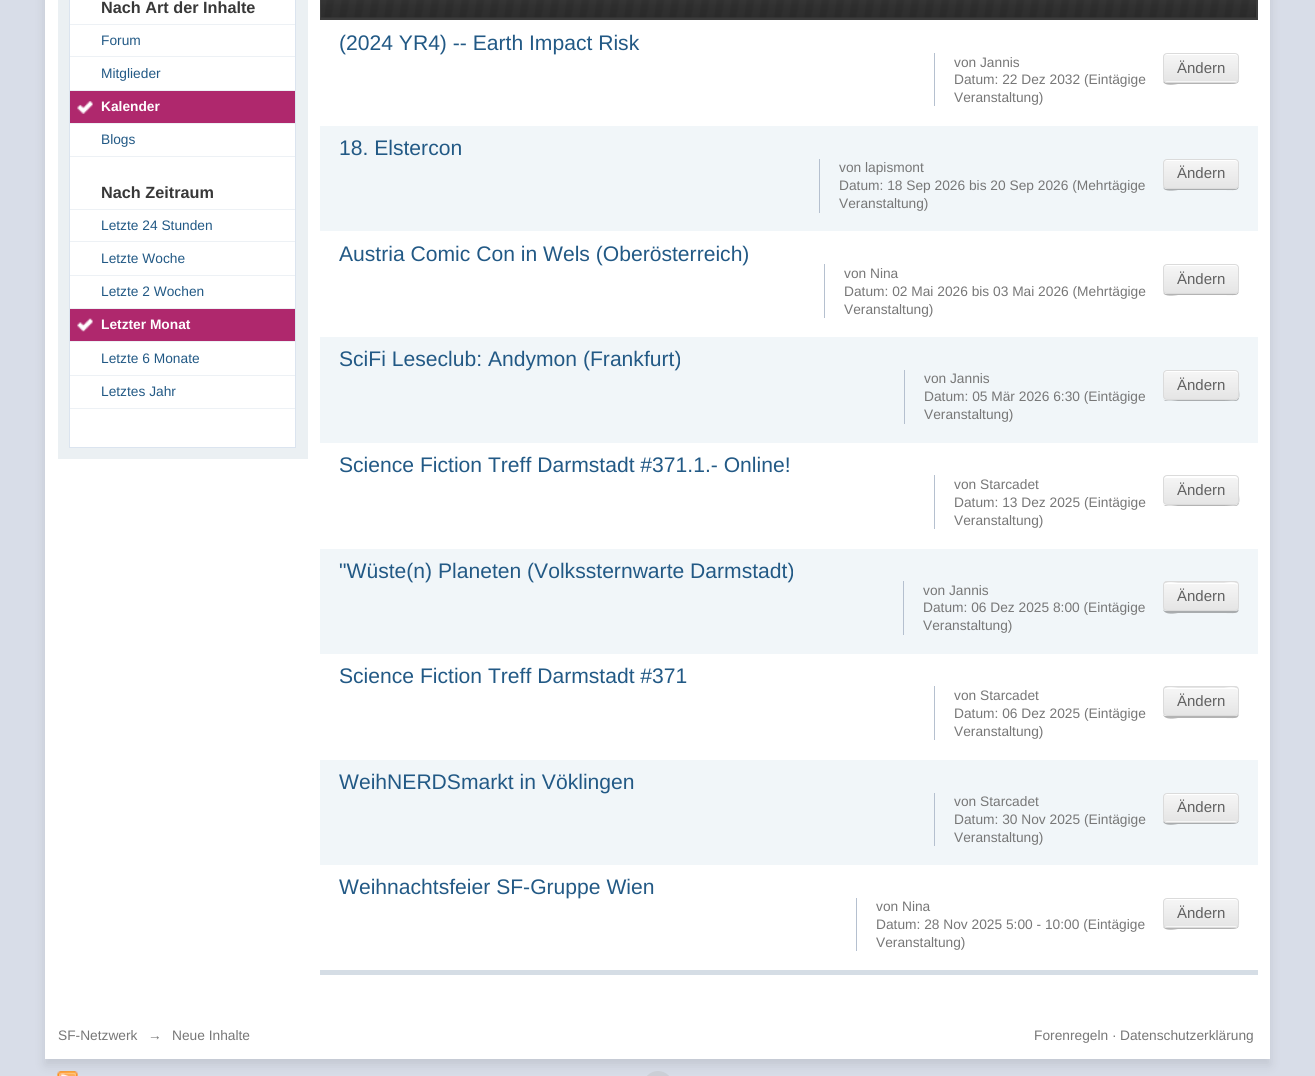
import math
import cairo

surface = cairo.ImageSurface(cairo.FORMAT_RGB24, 1315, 1076)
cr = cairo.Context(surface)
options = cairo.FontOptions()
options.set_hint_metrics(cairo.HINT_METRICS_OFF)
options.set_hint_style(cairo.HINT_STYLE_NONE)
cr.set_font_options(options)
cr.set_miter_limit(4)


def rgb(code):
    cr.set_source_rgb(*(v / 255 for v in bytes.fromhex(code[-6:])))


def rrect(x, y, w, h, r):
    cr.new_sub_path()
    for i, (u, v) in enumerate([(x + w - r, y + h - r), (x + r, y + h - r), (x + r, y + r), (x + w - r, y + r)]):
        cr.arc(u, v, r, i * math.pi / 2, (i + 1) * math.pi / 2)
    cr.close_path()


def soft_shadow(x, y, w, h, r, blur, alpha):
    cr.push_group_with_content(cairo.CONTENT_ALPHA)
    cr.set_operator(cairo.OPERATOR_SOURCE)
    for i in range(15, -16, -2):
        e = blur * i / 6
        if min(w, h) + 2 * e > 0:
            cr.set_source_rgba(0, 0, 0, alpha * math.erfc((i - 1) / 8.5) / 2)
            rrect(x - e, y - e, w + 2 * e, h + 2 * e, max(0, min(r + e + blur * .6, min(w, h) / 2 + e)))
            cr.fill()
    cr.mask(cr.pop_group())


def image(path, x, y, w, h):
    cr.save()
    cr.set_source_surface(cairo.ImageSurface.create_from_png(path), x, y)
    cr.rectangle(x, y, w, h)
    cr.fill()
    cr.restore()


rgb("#d8dde8")
cr.paint()
rgb("#000000")
soft_shadow(45, -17, 1225, 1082, 0, 5.5, 0.1)
rgb("#ffffff")
cr.rectangle(45, 0, 1225, 1059)
cr.fill()
rgb("#ebf0f3")
cr.rectangle(58, 0, 250, 459)
cr.fill()
rgb("#ffffff")
cr.rectangle(69.5, -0.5, 226, 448)
cr.fill_preserve()
rgb("#dbe4ef")
cr.set_line_width(1)
cr.stroke()
for x, y, w, h, color in [
    (70, 24, 225, 1, "#edf1f5"),
    (70, 56, 225, 1, "#edf1f5"),
    (70, 90, 225, 1, "#edf1f5"),
    (70, 123, 225, 1, "#edf1f5"),
    (70, 91, 225, 32, "#af286d"),
]:
    rgb(color)
    cr.rectangle(x, y, w, h)
    cr.fill()
image("img/1.png", 77, 101, 16, 13)
for x, y, w, h, color in [
    (70, 156, 225, 1, "#edf1f5"),
    (70, 209, 225, 1, "#edf1f5"),
    (70, 241, 225, 1, "#edf1f5"),
    (70, 275, 225, 1, "#edf1f5"),
    (70, 308, 225, 1, "#edf1f5"),
    (70, 341, 225, 1, "#edf1f5"),
    (70, 309, 225, 32, "#af286d"),
]:
    rgb(color)
    cr.rectangle(x, y, w, h)
    cr.fill()
image("img/2.png", 77, 318, 16, 14)
for x, y, w, h, color in [
    (70, 375, 225, 1, "#edf1f5"),
    (70, 408, 225, 1, "#edf1f5"),
    (321, 17, 935, 3, "#3c3c3c"),
]:
    rgb(color)
    cr.rectangle(x, y, w, h)
    cr.fill()
image("img/3.png", 321, 0, 935, 18)
cr.set_fill_rule(cairo.FILL_RULE_EVEN_ODD)
cr.new_path()
cr.move_to(325, -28)
cr.line_to(1252, -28)
cr.curve_to(1255, -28, 1258, -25, 1258, -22)
cr.line_to(1258, 20)
cr.line_to(320, 20)
cr.line_to(320, -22)
cr.curve_to(320, -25, 322, -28, 325, -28)
cr.close_path()
cr.move_to(325, -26)
cr.line_to(1252, -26)
cr.curve_to(1255, -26, 1256, -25, 1256, -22)
cr.line_to(1256, 20)
cr.line_to(321, 20)
cr.line_to(321, -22)
cr.curve_to(321, -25, 323, -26, 325, -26)
cr.close_path()
cr.fill()
rgb("#d5dde5")
cr.rectangle(320, 970, 938, 5)
cr.fill()
rgb("#b5c0cf")
cr.rectangle(934, 53, 1, 53)
cr.fill()
rgb("#b3b3b3")
cr.set_fill_rule(cairo.FILL_RULE_WINDING)
cr.new_path()
cr.move_to(1163, 81)
cr.curve_to(1164, 87, 1177, 84, 1178, 84)
cr.line_to(1224, 84)
cr.curve_to(1241, 84, 1239, 85, 1239, 69)
cr.line_to(1239, 57)
cr.line_to(1239, 79)
cr.curve_to(1239, 81, 1237, 82, 1235, 82)
cr.line_to(1166, 82)
cr.curve_to(1165, 82, 1164, 82, 1163, 81)
cr.close_path()
cr.fill()
cr.save()
rrect(1163, 53, 76, 30, 4)
cr.clip()
gradient = cairo.LinearGradient(1164, 54, 1164, 81)
gradient.add_color_stop_rgba(0, 0.965, 0.965, 0.965, 1)
gradient.add_color_stop_rgba(1, 0.898, 0.898, 0.898, 1)
cr.set_source(gradient)
cr.rectangle(1163, 54, 76, 27)
cr.fill()
gradient = cairo.LinearGradient(1164, 81, 1164, 109)
gradient.add_color_stop_rgba(0, 0.965, 0.965, 0.965, 1)
gradient.add_color_stop_rgba(1, 0.898, 0.898, 0.898, 1)
cr.set_source(gradient)
cr.rectangle(1163, 81, 76, 2)
cr.fill()
cr.restore()
rgb("#ffffff")
cr.new_path()
cr.move_to(1166, 55)
cr.line_to(1235, 55)
cr.curve_to(1236, 55, 1238, 56, 1238, 58)
cr.curve_to(1238, 51, 1230, 54, 1224, 54)
cr.line_to(1178, 54)
cr.curve_to(1172, 54, 1164, 51, 1164, 58)
cr.curve_to(1164, 56, 1165, 55, 1166, 55)
cr.close_path()
cr.fill()
rrect(1163.5, 53.5, 75, 29, 3.5)
rgb("#dbdbdb")
cr.stroke()
rgb("#f1f6f9")
cr.rectangle(320, 126, 938, 105)
cr.fill()
rgb("#b5c0cf")
cr.rectangle(819, 159, 1, 54)
cr.fill()
rgb("#a9acae")
cr.new_path()
cr.move_to(1163, 187)
cr.line_to(1164, 189)
cr.curve_to(1167, 192, 1178, 190, 1178, 190)
cr.line_to(1224, 190)
cr.curve_to(1239, 190, 1239, 192, 1239, 179)
cr.line_to(1239, 163)
cr.line_to(1239, 185)
cr.curve_to(1239, 187, 1237, 189, 1235, 189)
cr.line_to(1166, 189)
cr.curve_to(1165, 189, 1164, 188, 1163, 187)
cr.close_path()
cr.fill()
cr.save()
rrect(1163, 159, 76, 30, 4)
cr.clip()
gradient = cairo.LinearGradient(1164, 160, 1164, 188)
gradient.add_color_stop_rgba(0, 0.965, 0.965, 0.965, 1)
gradient.add_color_stop_rgba(1, 0.898, 0.898, 0.898, 1)
cr.set_source(gradient)
cr.rectangle(1163, 160, 76, 28)
cr.fill()
cr.restore()
rgb("#ffffff")
cr.new_path()
cr.move_to(1166, 161)
cr.line_to(1235, 161)
cr.curve_to(1236, 161, 1238, 162, 1238, 164)
cr.curve_to(1238, 157, 1230, 160, 1224, 160)
cr.line_to(1178, 160)
cr.curve_to(1172, 160, 1164, 157, 1164, 164)
cr.curve_to(1164, 162, 1165, 161, 1166, 161)
cr.close_path()
cr.fill()
rrect(1163.5, 159.5, 75, 29, 3.5)
rgb("#dbdbdb")
cr.stroke()
rgb("#b5c0cf")
cr.rectangle(824, 264, 1, 54)
cr.fill()
rgb("#b3b3b3")
cr.new_path()
cr.move_to(1163, 292)
cr.line_to(1164, 294)
cr.curve_to(1167, 297, 1178, 295, 1178, 295)
cr.line_to(1224, 295)
cr.curve_to(1239, 295, 1239, 297, 1239, 284)
cr.line_to(1239, 268)
cr.line_to(1239, 290)
cr.curve_to(1239, 292, 1237, 294, 1235, 294)
cr.line_to(1166, 294)
cr.curve_to(1165, 294, 1164, 293, 1163, 292)
cr.close_path()
cr.fill()
cr.save()
rrect(1163, 264, 76, 30, 4)
cr.clip()
gradient = cairo.LinearGradient(1164, 265, 1164, 293)
gradient.add_color_stop_rgba(0, 0.965, 0.965, 0.965, 1)
gradient.add_color_stop_rgba(1, 0.898, 0.898, 0.898, 1)
cr.set_source(gradient)
cr.rectangle(1163, 265, 76, 28)
cr.fill()
cr.restore()
rgb("#ffffff")
cr.new_path()
cr.move_to(1166, 266)
cr.line_to(1235, 266)
cr.curve_to(1236, 266, 1238, 267, 1238, 269)
cr.curve_to(1238, 262, 1230, 265, 1224, 265)
cr.line_to(1178, 265)
cr.curve_to(1172, 265, 1164, 262, 1164, 269)
cr.curve_to(1164, 267, 1165, 266, 1166, 266)
cr.close_path()
cr.fill()
rrect(1163.5, 264.5, 75, 29, 3.5)
rgb("#dbdbdb")
cr.stroke()
rgb("#f1f6f9")
cr.rectangle(320, 337, 938, 106)
cr.fill()
rgb("#b5c0cf")
cr.rectangle(904, 370, 1, 54)
cr.fill()
rgb("#a9acae")
cr.new_path()
cr.move_to(1163, 399)
cr.curve_to(1164, 400, 1165, 401, 1166, 401)
cr.line_to(1235, 401)
cr.curve_to(1241, 401, 1239, 393, 1239, 390)
cr.line_to(1239, 374)
cr.line_to(1239, 392)
cr.curve_to(1239, 403, 1235, 400, 1224, 400)
cr.line_to(1178, 400)
cr.curve_to(1176, 400, 1166, 402, 1163, 399)
cr.close_path()
cr.fill()
cr.save()
rrect(1163, 370, 76, 30, 4)
cr.clip()
gradient = cairo.LinearGradient(1164, 371, 1164, 399)
gradient.add_color_stop_rgba(0, 0.965, 0.965, 0.965, 1)
gradient.add_color_stop_rgba(1, 0.898, 0.898, 0.898, 1)
cr.set_source(gradient)
cr.rectangle(1163, 371, 76, 28)
cr.fill()
cr.restore()
rgb("#ffffff")
cr.new_path()
cr.move_to(1166, 372)
cr.line_to(1235, 372)
cr.curve_to(1236, 372, 1238, 374, 1238, 375)
cr.curve_to(1238, 368, 1230, 371, 1224, 371)
cr.line_to(1178, 371)
cr.curve_to(1172, 371, 1164, 368, 1164, 375)
cr.curve_to(1164, 374, 1165, 372, 1166, 372)
cr.close_path()
cr.fill()
rrect(1163.5, 370.5, 75, 29, 3.5)
rgb("#dbdbdb")
cr.stroke()
rgb("#b5c0cf")
cr.rectangle(934, 475, 1, 54)
cr.fill()
rgb("#b3b3b3")
cr.new_path()
cr.move_to(1163, 504)
cr.curve_to(1164, 505, 1165, 506, 1166, 506)
cr.line_to(1235, 506)
cr.curve_to(1241, 506, 1239, 498, 1239, 495)
cr.line_to(1239, 479)
cr.line_to(1239, 498)
cr.curve_to(1239, 508, 1235, 505, 1224, 505)
cr.line_to(1178, 505)
cr.curve_to(1176, 505, 1166, 507, 1163, 504)
cr.close_path()
cr.fill()
cr.save()
rrect(1163, 475, 76, 30, 4)
cr.clip()
gradient = cairo.LinearGradient(1164, 476, 1164, 504)
gradient.add_color_stop_rgba(0, 0.965, 0.965, 0.965, 1)
gradient.add_color_stop_rgba(1, 0.898, 0.898, 0.898, 1)
cr.set_source(gradient)
cr.rectangle(1163, 476, 76, 28)
cr.fill()
cr.restore()
rgb("#ffffff")
cr.new_path()
cr.move_to(1166, 478)
cr.line_to(1235, 478)
cr.curve_to(1236, 478, 1238, 479, 1238, 480)
cr.curve_to(1238, 473, 1230, 476, 1224, 476)
cr.line_to(1178, 476)
cr.curve_to(1172, 476, 1164, 473, 1164, 480)
cr.curve_to(1164, 479, 1165, 478, 1166, 478)
cr.close_path()
cr.fill()
rrect(1163.5, 475.5, 75, 29, 3.5)
rgb("#dbdbdb")
cr.stroke()
rgb("#f1f6f9")
cr.rectangle(320, 549, 938, 105)
cr.fill()
rgb("#b5c0cf")
cr.rectangle(903, 581, 1, 54)
cr.fill()
rgb("#a9acae")
cr.new_path()
cr.move_to(1163, 609)
cr.curve_to(1164, 616, 1177, 613, 1178, 613)
cr.line_to(1224, 613)
cr.curve_to(1239, 613, 1239, 615, 1239, 602)
cr.line_to(1239, 586)
cr.line_to(1239, 608)
cr.curve_to(1239, 610, 1237, 611, 1235, 611)
cr.line_to(1166, 611)
cr.curve_to(1165, 611, 1164, 611, 1163, 609)
cr.close_path()
cr.fill()
cr.save()
rrect(1163, 581, 76, 30, 4)
cr.clip()
gradient = cairo.LinearGradient(1164, 555, 1164, 583)
gradient.add_color_stop_rgba(0, 0.965, 0.965, 0.965, 1)
gradient.add_color_stop_rgba(1, 0.898, 0.898, 0.898, 1)
cr.set_source(gradient)
cr.rectangle(1163, 581, 76, 2)
cr.fill()
gradient = cairo.LinearGradient(1164, 583, 1164, 610)
gradient.add_color_stop_rgba(0, 0.965, 0.965, 0.965, 1)
gradient.add_color_stop_rgba(1, 0.898, 0.898, 0.898, 1)
cr.set_source(gradient)
cr.rectangle(1163, 583, 76, 27)
cr.fill()
cr.restore()
rgb("#ffffff")
cr.new_path()
cr.move_to(1166, 584)
cr.line_to(1235, 584)
cr.curve_to(1236, 584, 1238, 585, 1238, 586)
cr.curve_to(1238, 580, 1225, 583, 1224, 583)
cr.line_to(1178, 583)
cr.curve_to(1177, 583, 1164, 580, 1164, 586)
cr.curve_to(1164, 585, 1165, 584, 1166, 584)
cr.close_path()
cr.fill()
rrect(1163.5, 581.5, 75, 29, 3.5)
rgb("#dbdbdb")
cr.stroke()
rgb("#b5c0cf")
cr.rectangle(934, 686, 1, 54)
cr.fill()
rgb("#b3b3b3")
cr.new_path()
cr.move_to(1163, 714)
cr.curve_to(1164, 721, 1177, 718, 1178, 718)
cr.line_to(1224, 718)
cr.curve_to(1239, 718, 1239, 720, 1239, 707)
cr.line_to(1239, 691)
cr.line_to(1239, 712)
cr.curve_to(1239, 715, 1237, 716, 1235, 716)
cr.line_to(1166, 716)
cr.curve_to(1165, 716, 1164, 716, 1163, 714)
cr.close_path()
cr.fill()
cr.save()
rrect(1163, 686, 76, 30, 4)
cr.clip()
gradient = cairo.LinearGradient(1164, 660, 1164, 688)
gradient.add_color_stop_rgba(0, 0.965, 0.965, 0.965, 1)
gradient.add_color_stop_rgba(1, 0.898, 0.898, 0.898, 1)
cr.set_source(gradient)
cr.rectangle(1163, 686, 76, 2)
cr.fill()
gradient = cairo.LinearGradient(1164, 688, 1164, 715)
gradient.add_color_stop_rgba(0, 0.965, 0.965, 0.965, 1)
gradient.add_color_stop_rgba(1, 0.898, 0.898, 0.898, 1)
cr.set_source(gradient)
cr.rectangle(1163, 688, 76, 27)
cr.fill()
cr.restore()
rgb("#ffffff")
cr.new_path()
cr.move_to(1166, 689)
cr.line_to(1235, 689)
cr.curve_to(1236, 689, 1238, 690, 1238, 691)
cr.curve_to(1238, 685, 1225, 688, 1224, 688)
cr.line_to(1178, 688)
cr.curve_to(1177, 688, 1164, 685, 1164, 691)
cr.curve_to(1164, 690, 1165, 689, 1166, 689)
cr.close_path()
cr.fill()
rrect(1163.5, 686.5, 75, 29, 3.5)
rgb("#dbdbdb")
cr.stroke()
rgb("#f1f6f9")
cr.rectangle(320, 760, 938, 105)
cr.fill()
rgb("#b5c0cf")
cr.rectangle(934, 793, 1, 53)
cr.fill()
rgb("#a9acae")
cr.new_path()
cr.move_to(1163, 821)
cr.curve_to(1164, 827, 1177, 824, 1178, 824)
cr.line_to(1224, 824)
cr.curve_to(1241, 824, 1239, 825, 1239, 809)
cr.line_to(1239, 797)
cr.line_to(1239, 819)
cr.curve_to(1239, 821, 1237, 822, 1235, 822)
cr.line_to(1166, 822)
cr.curve_to(1165, 822, 1164, 822, 1163, 821)
cr.close_path()
cr.fill()
cr.save()
rrect(1163, 793, 76, 30, 4)
cr.clip()
gradient = cairo.LinearGradient(1164, 794, 1164, 821)
gradient.add_color_stop_rgba(0, 0.965, 0.965, 0.965, 1)
gradient.add_color_stop_rgba(1, 0.898, 0.898, 0.898, 1)
cr.set_source(gradient)
cr.rectangle(1163, 794, 76, 27)
cr.fill()
gradient = cairo.LinearGradient(1164, 821, 1164, 849)
gradient.add_color_stop_rgba(0, 0.965, 0.965, 0.965, 1)
gradient.add_color_stop_rgba(1, 0.898, 0.898, 0.898, 1)
cr.set_source(gradient)
cr.rectangle(1163, 821, 76, 2)
cr.fill()
cr.restore()
rgb("#ffffff")
cr.new_path()
cr.move_to(1166, 795)
cr.line_to(1235, 795)
cr.curve_to(1236, 795, 1238, 796, 1238, 798)
cr.curve_to(1238, 791, 1230, 794, 1224, 794)
cr.line_to(1178, 794)
cr.curve_to(1172, 794, 1164, 791, 1164, 798)
cr.curve_to(1164, 796, 1165, 795, 1166, 795)
cr.close_path()
cr.fill()
rrect(1163.5, 793.5, 75, 29, 3.5)
rgb("#dbdbdb")
cr.stroke()
rgb("#b5c0cf")
cr.rectangle(856, 898, 1, 53)
cr.fill()
rgb("#b3b3b3")
cr.new_path()
cr.move_to(1163, 926)
cr.curve_to(1164, 932, 1177, 929, 1178, 929)
cr.line_to(1224, 929)
cr.curve_to(1241, 929, 1239, 930, 1239, 914)
cr.line_to(1239, 902)
cr.line_to(1239, 924)
cr.curve_to(1239, 926, 1237, 928, 1235, 928)
cr.line_to(1166, 928)
cr.curve_to(1165, 928, 1164, 927, 1163, 926)
cr.close_path()
cr.fill()
cr.save()
rrect(1163, 898, 76, 30, 4)
cr.clip()
gradient = cairo.LinearGradient(1164, 899, 1164, 926)
gradient.add_color_stop_rgba(0, 0.965, 0.965, 0.965, 1)
gradient.add_color_stop_rgba(1, 0.898, 0.898, 0.898, 1)
cr.set_source(gradient)
cr.rectangle(1163, 899, 76, 27)
cr.fill()
gradient = cairo.LinearGradient(1164, 926, 1164, 954)
gradient.add_color_stop_rgba(0, 0.965, 0.965, 0.965, 1)
gradient.add_color_stop_rgba(1, 0.898, 0.898, 0.898, 1)
cr.set_source(gradient)
cr.rectangle(1163, 926, 76, 2)
cr.fill()
cr.restore()
rgb("#ffffff")
cr.new_path()
cr.move_to(1166, 900)
cr.line_to(1235, 900)
cr.curve_to(1236, 900, 1238, 901, 1238, 902)
cr.curve_to(1238, 896, 1225, 899, 1224, 899)
cr.line_to(1178, 899)
cr.curve_to(1177, 899, 1164, 896, 1164, 902)
cr.curve_to(1164, 901, 1165, 900, 1166, 900)
cr.close_path()
cr.fill()
rrect(1163.5, 898.5, 75, 29, 3.5)
rgb("#dbdbdb")
cr.stroke()
image("img/4.png", 57, 1071, 21, 5)
rgb("#cccfd6")
rrect(643, 1071, 30, 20, 15)
cr.fill()
cr.select_font_face("Liberation Sans", cairo.FONT_SLANT_NORMAL, cairo.FONT_WEIGHT_BOLD)
cr.set_font_size(16.25)
rgb("#383838")
cr.move_to(101, 13)
cr.show_text("Nach Art der Inhalte")
cr.select_font_face("Liberation Sans")
cr.set_font_size(13.75)
rgb("#225985")
cr.move_to(101, 45)
cr.show_text("Forum")
cr.move_to(101, 78)
cr.show_text("Mitglieder")
cr.select_font_face("Liberation Sans", cairo.FONT_SLANT_NORMAL, cairo.FONT_WEIGHT_BOLD)
rgb("#ffffff")
cr.move_to(101, 111)
cr.show_text("Kalender")
cr.select_font_face("Liberation Sans")
rgb("#225985")
cr.move_to(101, 144)
cr.show_text("Blogs")
cr.select_font_face("Liberation Sans", cairo.FONT_SLANT_NORMAL, cairo.FONT_WEIGHT_BOLD)
cr.set_font_size(16.25)
rgb("#383838")
cr.move_to(101, 198)
cr.show_text("Nach Zeitraum")
cr.select_font_face("Liberation Sans")
cr.set_font_size(13.75)
rgb("#225985")
for x, y, s in [
    (101, 230, "Letzte 24 Stunden"),
    (101, 263, "Letzte Woche"),
    (101, 296, "Letzte 2 Wochen"),
]:
    cr.move_to(x, y)
    cr.show_text(s)
cr.select_font_face("Liberation Sans", cairo.FONT_SLANT_NORMAL, cairo.FONT_WEIGHT_BOLD)
rgb("#ffffff")
cr.move_to(101, 329)
cr.show_text("Letzter Monat")
cr.select_font_face("Liberation Sans")
rgb("#225985")
cr.move_to(101, 363)
cr.show_text("Letzte 6 Monate")
cr.move_to(101, 396)
cr.show_text("Letztes Jahr")
cr.set_font_size(21.1)
cr.move_to(339, 50)
cr.show_text("(2024 YR4) -- Earth Impact Risk")
cr.set_font_size(13.75)
rgb("#777777")
for x, y, s in [
    (954, 67, "von Jannis"),
    (954, 84, "Datum: 22 Dez 2032 (Eintägige"),
    (954, 102, "Veranstaltung)"),
]:
    cr.move_to(x, y)
    cr.show_text(s)
cr.set_font_size(15)
rgb("#616161")
cr.move_to(1177, 73)
cr.show_text("Ändern")
cr.set_font_size(21.1)
rgb("#225985")
cr.move_to(339, 155)
cr.show_text("18. Elstercon")
cr.set_font_size(13.75)
rgb("#777777")
for x, y, s in [
    (839, 172, "von lapismont"),
    (839, 190, "Datum: 18 Sep 2026 bis 20 Sep 2026 (Mehrtägige"),
    (839, 208, "Veranstaltung)"),
]:
    cr.move_to(x, y)
    cr.show_text(s)
cr.set_font_size(15)
rgb("#616161")
cr.move_to(1177, 178)
cr.show_text("Ändern")
cr.set_font_size(21.1)
rgb("#225985")
cr.move_to(339, 261)
cr.show_text("Austria Comic Con in Wels (Oberösterreich)")
cr.set_font_size(13.75)
rgb("#777777")
for x, y, s in [
    (844, 278, "von Nina"),
    (844, 296, "Datum: 02 Mai 2026 bis 03 Mai 2026 (Mehrtägige"),
    (844, 314, "Veranstaltung)"),
]:
    cr.move_to(x, y)
    cr.show_text(s)
cr.set_font_size(15)
rgb("#616161")
cr.move_to(1177, 284)
cr.show_text("Ändern")
cr.set_font_size(21.1)
rgb("#225985")
cr.move_to(339, 366)
cr.show_text("SciFi Leseclub: Andymon (Frankfurt)")
cr.set_font_size(13.75)
rgb("#777777")
for x, y, s in [
    (924, 383, "von Jannis"),
    (924, 401, "Datum: 05 Mär 2026 6:30 (Eintägige"),
    (924, 419, "Veranstaltung)"),
]:
    cr.move_to(x, y)
    cr.show_text(s)
cr.set_font_size(15)
rgb("#616161")
cr.move_to(1177, 390)
cr.show_text("Ändern")
cr.set_font_size(21.1)
rgb("#225985")
cr.move_to(339, 472)
cr.show_text("Science Fiction Treff Darmstadt #371.1.- Online!")
cr.set_font_size(13.75)
rgb("#777777")
for x, y, s in [
    (954, 489, "von Starcadet"),
    (954, 507, "Datum: 13 Dez 2025 (Eintägige"),
    (954, 525, "Veranstaltung)"),
]:
    cr.move_to(x, y)
    cr.show_text(s)
cr.set_font_size(15)
rgb("#616161")
cr.move_to(1177, 495)
cr.show_text("Ändern")
cr.set_font_size(21.1)
rgb("#225985")
cr.move_to(339, 578)
cr.show_text("\"Wüste(n) Planeten (Volkssternwarte Darmstadt)")
cr.set_font_size(13.75)
rgb("#777777")
for x, y, s in [
    (923, 595, "von Jannis"),
    (923, 612, "Datum: 06 Dez 2025 8:00 (Eintägige"),
    (923, 630, "Veranstaltung)"),
]:
    cr.move_to(x, y)
    cr.show_text(s)
cr.set_font_size(15)
rgb("#616161")
cr.move_to(1177, 601)
cr.show_text("Ändern")
cr.set_font_size(21.1)
rgb("#225985")
cr.move_to(339, 683)
cr.show_text("Science Fiction Treff Darmstadt #371")
cr.set_font_size(13.75)
rgb("#777777")
for x, y, s in [
    (954, 700, "von Starcadet"),
    (954, 718, "Datum: 06 Dez 2025 (Eintägige"),
    (954, 736, "Veranstaltung)"),
]:
    cr.move_to(x, y)
    cr.show_text(s)
cr.set_font_size(15)
rgb("#616161")
cr.move_to(1177, 706)
cr.show_text("Ändern")
cr.set_font_size(21.1)
rgb("#225985")
cr.move_to(339, 789)
cr.show_text("WeihNERDSmarkt in Vöklingen")
cr.set_font_size(13.75)
rgb("#777777")
for x, y, s in [
    (954, 806, "von Starcadet"),
    (954, 824, "Datum: 30 Nov 2025 (Eintägige"),
    (954, 842, "Veranstaltung)"),
]:
    cr.move_to(x, y)
    cr.show_text(s)
cr.set_font_size(15)
rgb("#616161")
cr.move_to(1177, 812)
cr.show_text("Ändern")
cr.set_font_size(21.1)
rgb("#225985")
cr.move_to(339, 894)
cr.show_text("Weihnachtsfeier SF-Gruppe Wien")
cr.set_font_size(13.75)
rgb("#777777")
for x, y, s in [
    (876, 911, "von Nina"),
    (876, 929, "Datum: 28 Nov 2025 5:00 - 10:00 (Eintägige"),
    (876, 947, "Veranstaltung)"),
]:
    cr.move_to(x, y)
    cr.show_text(s)
cr.set_font_size(15)
rgb("#616161")
cr.move_to(1177, 918)
cr.show_text("Ändern")
cr.set_font_size(13.75)
rgb("#777777")
for x, y, s in [
    (58, 1040, "SF-Netzwerk"),
    (148, 1040, "→"),
    (172, 1040, "Neue Inhalte"),
    (1034, 1040, "Forenregeln ·"),
    (1120, 1040, "Datenschutzerklärung"),
]:
    cr.move_to(x, y)
    cr.show_text(s)
surface.write_to_png("page.png")
